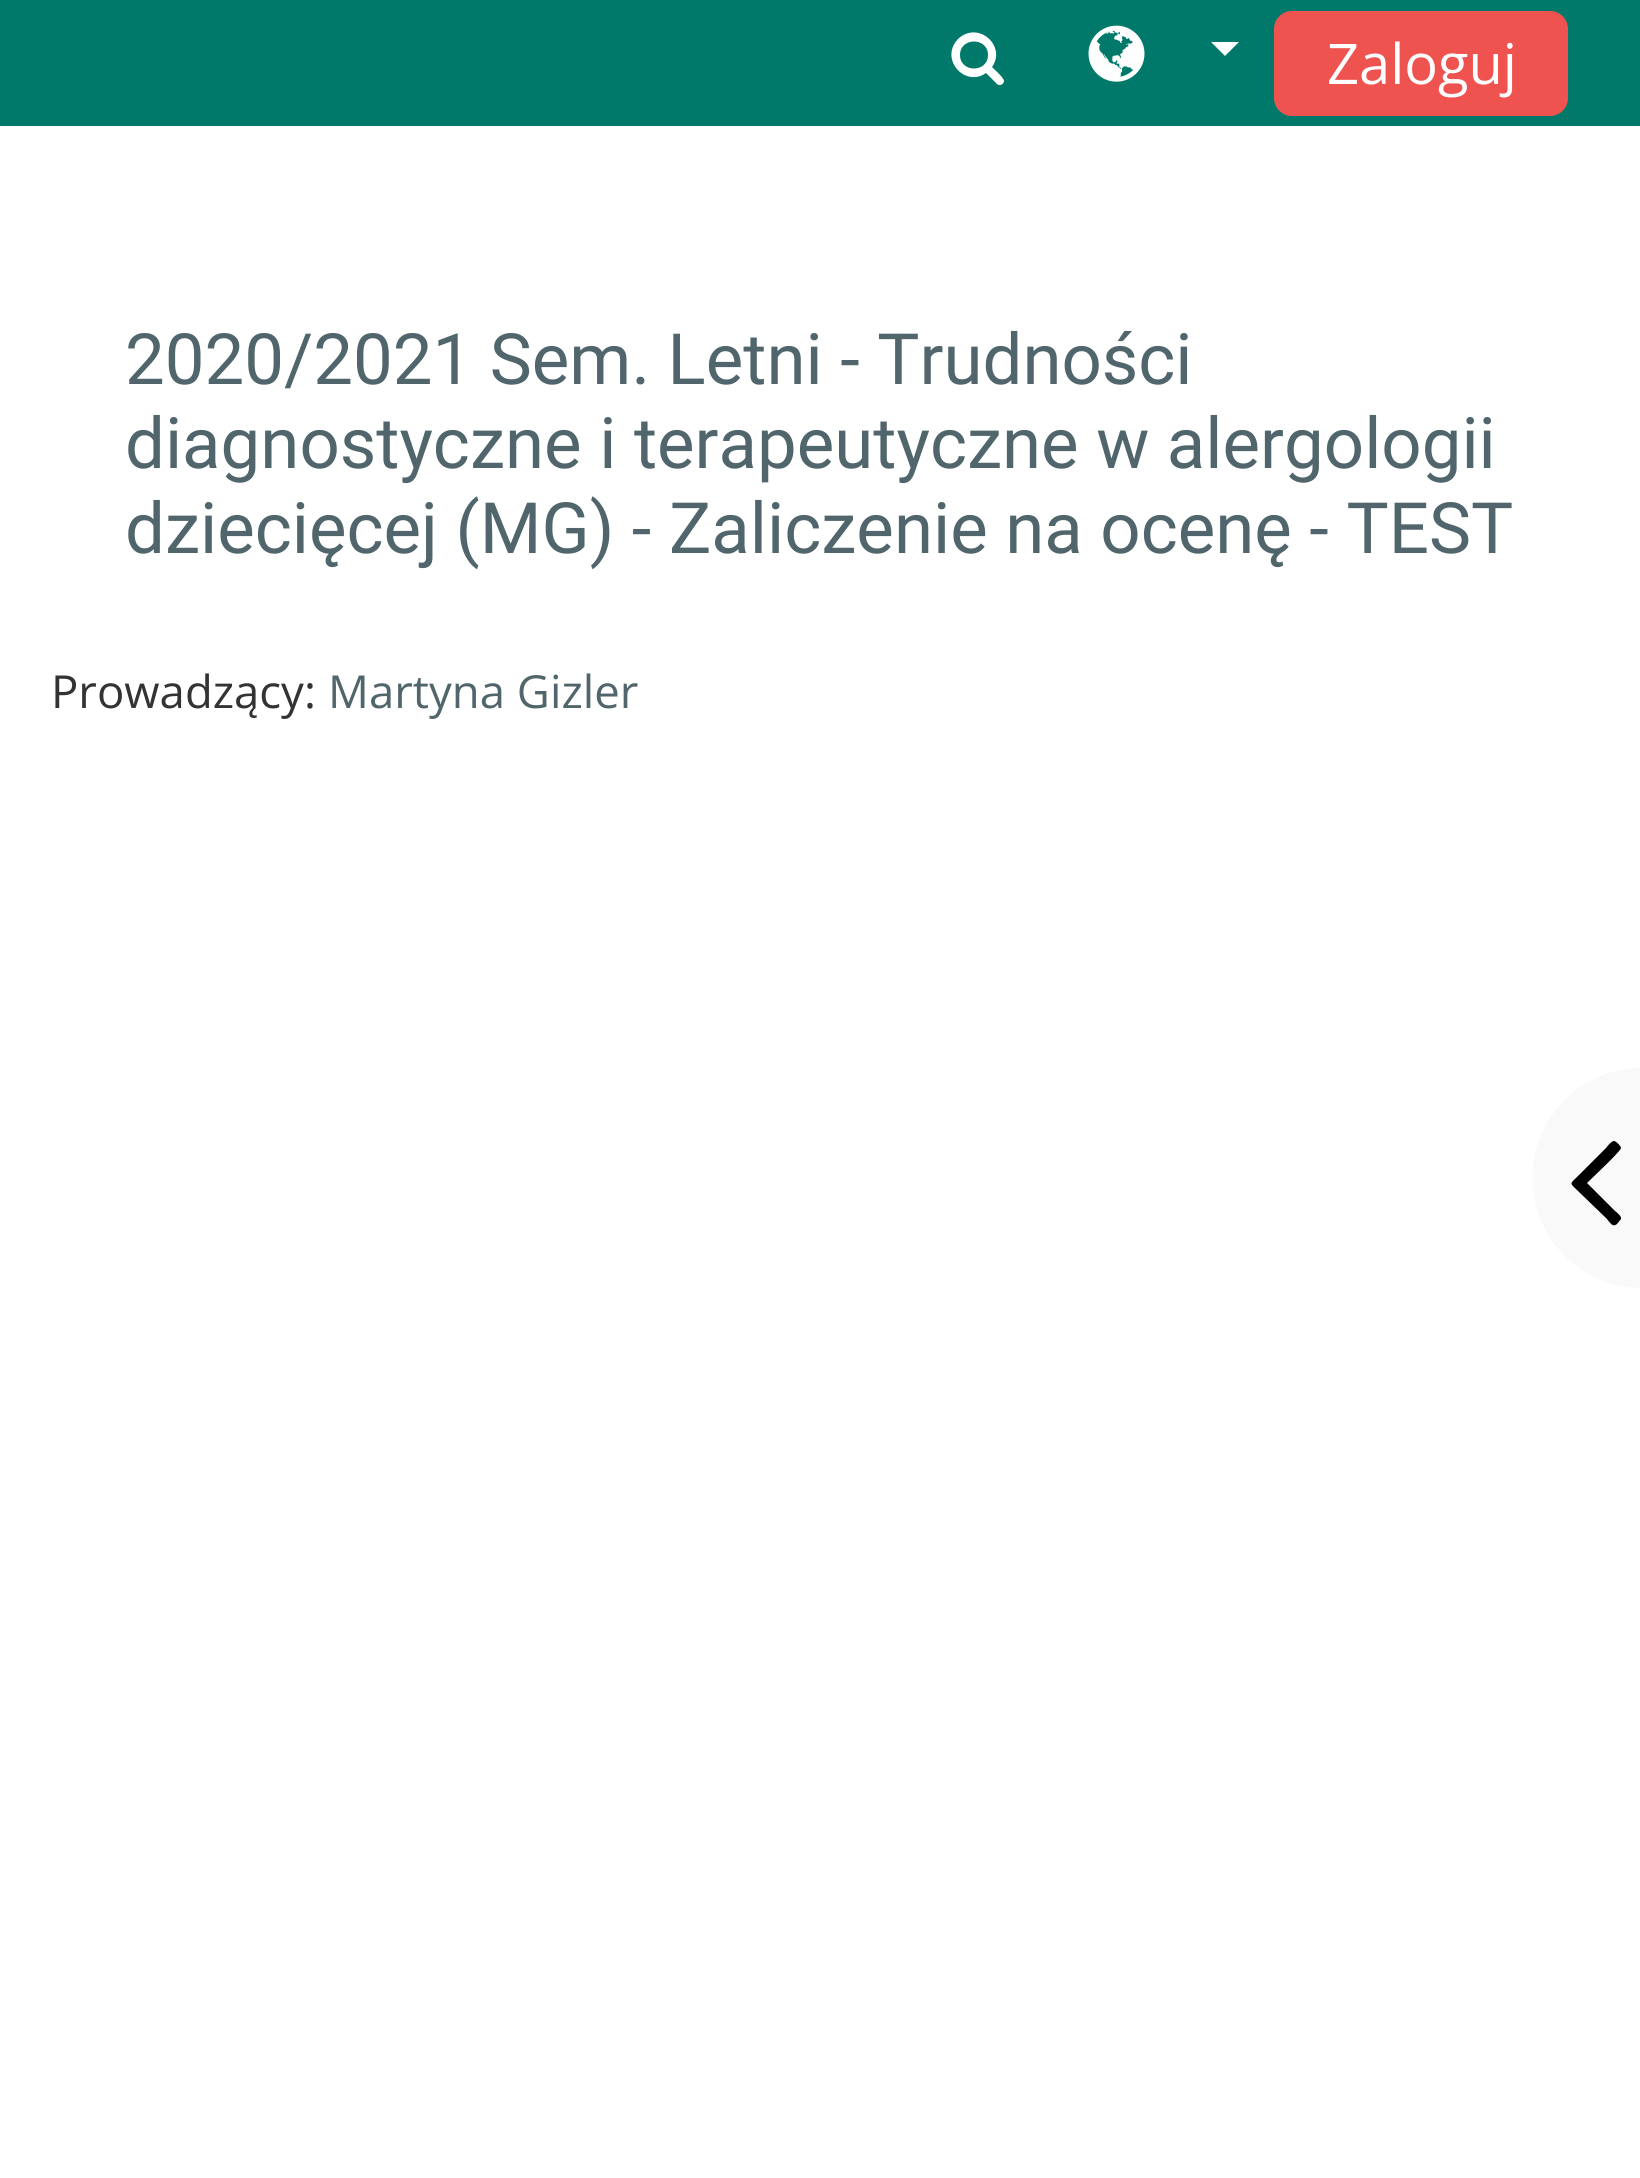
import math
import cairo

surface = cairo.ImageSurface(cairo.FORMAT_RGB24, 1640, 2178)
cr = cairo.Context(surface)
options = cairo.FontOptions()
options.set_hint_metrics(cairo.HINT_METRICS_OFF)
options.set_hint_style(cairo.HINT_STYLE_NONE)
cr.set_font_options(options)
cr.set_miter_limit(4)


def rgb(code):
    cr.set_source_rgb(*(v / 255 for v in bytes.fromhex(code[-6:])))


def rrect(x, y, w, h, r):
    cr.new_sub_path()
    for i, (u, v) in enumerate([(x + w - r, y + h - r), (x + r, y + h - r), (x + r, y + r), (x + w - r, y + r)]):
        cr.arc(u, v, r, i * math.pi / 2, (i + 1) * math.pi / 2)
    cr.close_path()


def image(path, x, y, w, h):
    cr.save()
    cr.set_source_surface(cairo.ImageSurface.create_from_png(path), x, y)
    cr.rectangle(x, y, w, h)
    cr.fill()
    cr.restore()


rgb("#ffffff")
cr.paint()
rgb("#00796b")
cr.rectangle(0, 0, 1640, 126)
cr.fill()
rgb("#ffffff")
cr.new_path()
cr.move_to(988, 55)
cr.curve_to(988, 73, 960, 73, 960, 55)
cr.curve_to(960, 37, 988, 37, 988, 55)
cr.close_path()
cr.move_to(1004, 81)
cr.curve_to(1004, 78, 995, 70, 992, 67)
cr.curve_to(1007, 46, 978, 20, 958, 39)
cr.curve_to(939, 59, 965, 88, 986, 73)
cr.line_to(997, 84)
cr.curve_to(998, 85, 999, 85, 1000, 85)
cr.curve_to(1002, 85, 1004, 83, 1004, 81)
cr.close_path()
cr.fill()
image("img/1.png", 1088, 25, 57, 57)
cr.new_path()
cr.move_to(1211, 42)
cr.line_to(1239, 42)
cr.line_to(1225, 56)
cr.close_path()
cr.fill()
rgb("#ef5350")
rrect(1274, 11, 294, 105, 18)
cr.fill()
rgb("#f9f9f9")
cr.new_path()
cr.move_to(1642, 1068)
cr.line_to(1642, 1288)
cr.curve_to(1582, 1288, 1533, 1239, 1533, 1179)
cr.line_to(1533, 1177)
cr.curve_to(1533, 1117, 1582, 1068, 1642, 1068)
cr.close_path()
cr.fill()
cr.set_fill_rule(cairo.FILL_RULE_EVEN_ODD)
cr.new_path()
cr.move_to(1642, 1068)
cr.line_to(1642, 1288)
cr.curve_to(1582, 1288, 1533, 1239, 1533, 1180)
cr.line_to(1533, 1176)
cr.curve_to(1533, 1116, 1582, 1068, 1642, 1068)
cr.close_path()
cr.move_to(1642, 1082)
cr.line_to(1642, 1274)
cr.curve_to(1589, 1274, 1547, 1232, 1547, 1180)
cr.line_to(1547, 1176)
cr.curve_to(1547, 1124, 1589, 1082, 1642, 1082)
cr.close_path()
cr.fill()
rgb("#000000")
cr.set_fill_rule(cairo.FILL_RULE_WINDING)
cr.new_path()
cr.move_to(1621, 1148)
cr.curve_to(1621, 1146, 1616, 1141, 1614, 1141)
cr.curve_to(1611, 1141, 1606, 1148, 1606, 1148)
cr.line_to(1579, 1175)
cr.curve_to(1569, 1185, 1569, 1182, 1579, 1192)
cr.line_to(1606, 1218)
cr.curve_to(1610, 1222, 1612, 1228, 1617, 1224)
cr.line_to(1621, 1219)
cr.curve_to(1622, 1216, 1615, 1211, 1615, 1211)
cr.line_to(1587, 1183)
cr.curve_to(1591, 1179, 1621, 1151, 1621, 1148)
cr.close_path()
cr.fill()
cr.select_font_face("Open Sans")
cr.set_font_size(56)
rgb("#ffffff")
cr.move_to(1327, 84)
cr.show_text("Zaloguj")
cr.select_font_face("Roboto")
cr.set_font_size(70.75)
rgb("#51666c")
for x, y, s in [
    (125, 384, "2020/2021 Sem. Letni - Trudności"),
    (125, 468, "diagnostyczne i terapeutyczne w alergologii"),
    (125, 553, "dziecięcej (MG) - Zaliczenie na ocenę - TEST"),
]:
    cr.move_to(x, y)
    cr.show_text(s)
cr.select_font_face("Open Sans")
cr.set_font_size(45.5)
rgb("#333333")
cr.move_to(51, 708)
cr.show_text("Prowadzący:")
rgb("#51666c")
cr.move_to(328, 708)
cr.show_text("Martyna Gizler")
surface.write_to_png("page.png")
